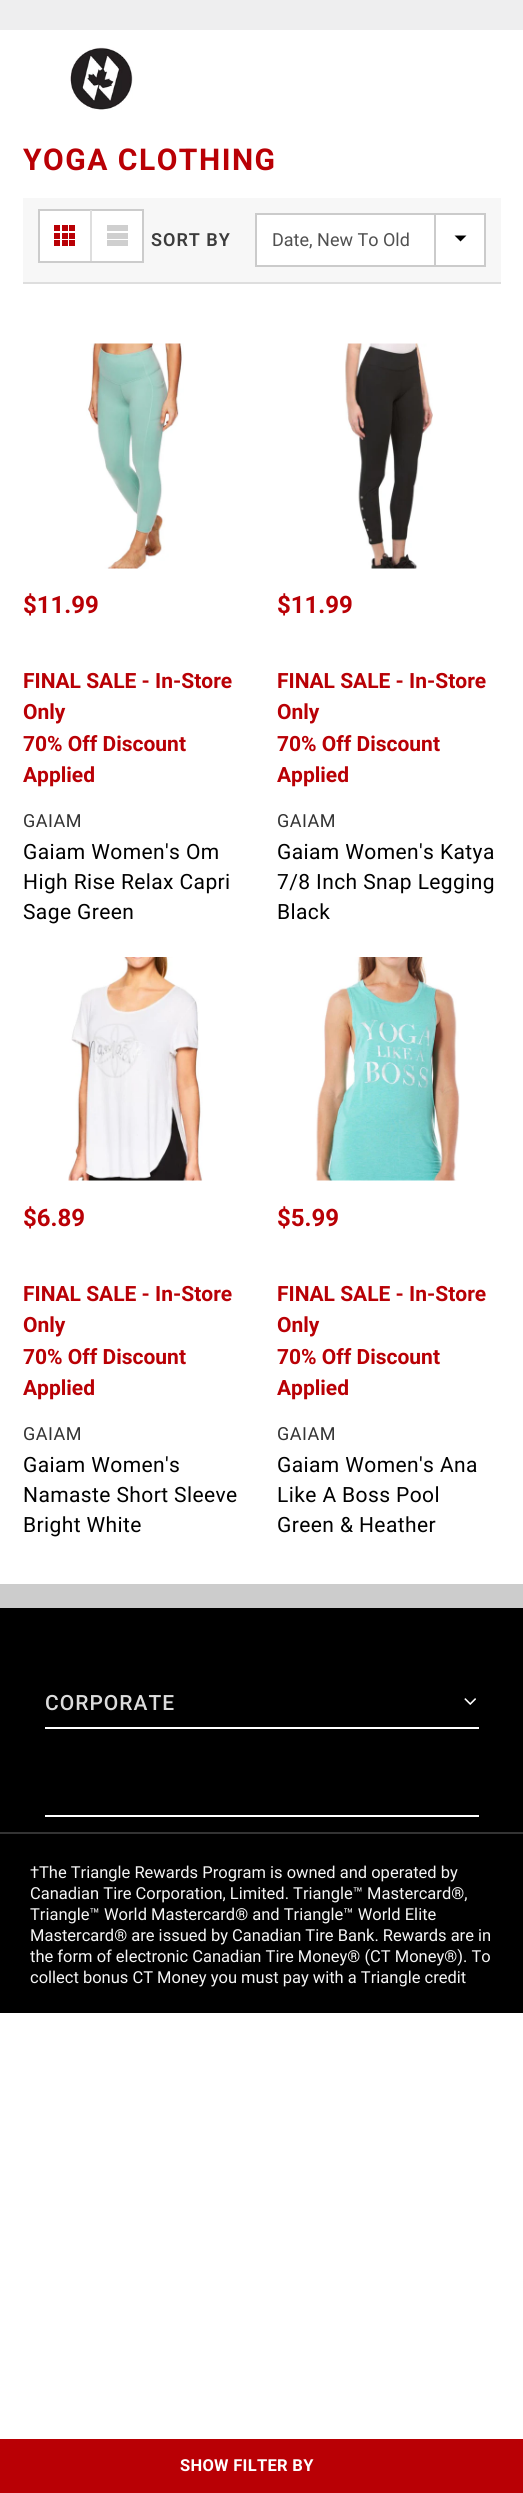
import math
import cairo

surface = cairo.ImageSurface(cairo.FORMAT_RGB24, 523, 2493)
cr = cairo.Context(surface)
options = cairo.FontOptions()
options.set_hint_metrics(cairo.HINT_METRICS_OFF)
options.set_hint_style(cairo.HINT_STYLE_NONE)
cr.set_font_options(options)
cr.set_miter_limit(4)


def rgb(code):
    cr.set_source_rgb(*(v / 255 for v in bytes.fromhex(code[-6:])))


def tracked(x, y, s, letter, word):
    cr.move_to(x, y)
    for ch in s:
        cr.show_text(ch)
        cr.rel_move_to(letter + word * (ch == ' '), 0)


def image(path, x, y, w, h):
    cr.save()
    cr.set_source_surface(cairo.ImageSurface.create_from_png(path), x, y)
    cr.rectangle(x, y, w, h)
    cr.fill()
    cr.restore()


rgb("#ffffff")
cr.paint()
rgb("#eeeeef")
cr.rectangle(0, 0, 523, 30)
cr.fill()
image("img/1.png", 70, 47, 63, 63)
rgb("#f7f7f7")
cr.rectangle(23, 198, 478, 84)
cr.fill()
rgb("#dedede")
cr.rectangle(23, 282, 478, 2)
cr.fill()
rgb("#ffffff")
cr.rectangle(39, 210, 104, 52)
cr.fill_preserve()
rgb("#cccccc")
cr.stroke()
for x, y, w, h, color in [
    (90, 210, 2, 51, "#dedede"),
    (62, 225, 6, 6, "#b90005"),
    (54, 225, 6, 6, "#b90005"),
    (69, 225, 6, 6, "#b90005"),
    (62, 233, 6, 6, "#b90005"),
    (54, 233, 6, 6, "#b90005"),
    (69, 233, 6, 6, "#b90005"),
    (62, 240, 6, 6, "#b90005"),
    (54, 240, 6, 6, "#b90005"),
    (69, 240, 6, 6, "#b90005"),
    (107, 225, 21, 6, "#cfcfcf"),
    (107, 233, 21, 6, "#cfcfcf"),
    (107, 240, 21, 6, "#cfcfcf"),
]:
    rgb(color)
    cr.rectangle(x, y, w, h)
    cr.fill()
rgb("#ffffff")
cr.rectangle(256, 214, 229, 52)
cr.fill_preserve()
rgb("#cbcbcb")
cr.stroke()
cr.rectangle(434, 215, 2, 51)
cr.fill()
rgb("#000000")
cr.new_path()
cr.move_to(454.5, 235.5)
cr.line_to(466.5, 235.5)
cr.line_to(460.5, 241.5)
cr.close_path()
cr.fill()
image("img/2.png", 86, 343, 98, 226)
image("img/3.png", 345, 343, 88, 226)
image("img/4.png", 68, 957, 135, 224)
image("img/5.png", 315, 957, 145, 224)
for x, y, w, h, color in [
    (0, 1584, 523, 24, "#cccccc"),
    (0, 1608, 523, 405, "#000000"),
    (45, 1727, 434, 2, "#ffffff"),
]:
    rgb(color)
    cr.rectangle(x, y, w, h)
    cr.fill()
image("img/6.png", 464, 1698, 12, 7)
for x, y, w, h, color in [
    (45, 1815, 434, 2, "#ffffff"),
    (0, 1832, 523, 2, "#333333"),
    (0, 2439, 523, 54, "#b90005"),
]:
    rgb(color)
    cr.rectangle(x, y, w, h)
    cr.fill()
cr.select_font_face("Roboto", cairo.FONT_SLANT_NORMAL, cairo.FONT_WEIGHT_BOLD)
cr.set_font_size(30)
tracked(23, 170, "YOGA CLOTHING", 1.5, 0)
cr.select_font_face("Roboto SemiBold")
cr.set_font_size(18)
rgb("#3c3c3c")
tracked(151, 246, "SORT BY", 1, 0)
cr.select_font_face("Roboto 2")
rgb("#505050")
cr.move_to(272, 246)
cr.show_text("Date, New To Old")
cr.select_font_face("Roboto", cairo.FONT_SLANT_NORMAL, cairo.FONT_WEIGHT_BOLD)
cr.set_font_size(24)
rgb("#b90005")
cr.move_to(23, 613)
cr.show_text("$11.99")
cr.set_font_size(21)
for x, y, s in [
    (23, 688, "FINAL SALE - In-Store"),
    (23, 719, "Only"),
    (23, 751, "70% Off Discount"),
    (23, 782, "Applied"),
]:
    cr.move_to(x, y)
    cr.show_text(s)
cr.select_font_face("Roboto 2")
cr.set_font_size(18)
rgb("#333333")
tracked(23, 827, "GAIAM", 0.5, 0)
cr.set_font_size(21)
rgb("#000000")
for x, y, s in [
    (23, 859, "Gaiam Women's Om"),
    (23, 889, "High Rise Relax Capri"),
    (23, 919, "Sage Green"),
]:
    tracked(x, y, s, 0.4, 0)
cr.select_font_face("Roboto", cairo.FONT_SLANT_NORMAL, cairo.FONT_WEIGHT_BOLD)
cr.set_font_size(24)
rgb("#b90005")
cr.move_to(277, 613)
cr.show_text("$11.99")
cr.set_font_size(21)
for x, y, s in [
    (277, 688, "FINAL SALE - In-Store"),
    (277, 719, "Only"),
    (277, 751, "70% Off Discount"),
    (277, 782, "Applied"),
]:
    cr.move_to(x, y)
    cr.show_text(s)
cr.select_font_face("Roboto 2")
cr.set_font_size(18)
rgb("#333333")
tracked(277, 827, "GAIAM", 0.5, 0)
cr.set_font_size(21)
rgb("#000000")
for x, y, s in [
    (277, 859, "Gaiam Women's Katya"),
    (277, 889, "7/8 Inch Snap Legging"),
    (277, 919, "Black"),
]:
    tracked(x, y, s, 0.4, 0)
cr.select_font_face("Roboto", cairo.FONT_SLANT_NORMAL, cairo.FONT_WEIGHT_BOLD)
cr.set_font_size(24)
rgb("#b90005")
cr.move_to(23, 1226)
cr.show_text("$6.89")
cr.set_font_size(21)
for x, y, s in [
    (23, 1301, "FINAL SALE - In-Store"),
    (23, 1332, "Only"),
    (23, 1364, "70% Off Discount"),
    (23, 1395, "Applied"),
]:
    cr.move_to(x, y)
    cr.show_text(s)
cr.select_font_face("Roboto 2")
cr.set_font_size(18)
rgb("#333333")
tracked(23, 1440, "GAIAM", 0.5, 0)
cr.set_font_size(21)
rgb("#000000")
for x, y, s in [
    (23, 1472, "Gaiam Women's"),
    (23, 1502, "Namaste Short Sleeve"),
    (23, 1532, "Bright White"),
]:
    tracked(x, y, s, 0.4, 0)
cr.select_font_face("Roboto", cairo.FONT_SLANT_NORMAL, cairo.FONT_WEIGHT_BOLD)
cr.set_font_size(24)
rgb("#b90005")
cr.move_to(277, 1226)
cr.show_text("$5.99")
cr.set_font_size(21)
for x, y, s in [
    (277, 1301, "FINAL SALE - In-Store"),
    (277, 1332, "Only"),
    (277, 1364, "70% Off Discount"),
    (277, 1395, "Applied"),
]:
    cr.move_to(x, y)
    cr.show_text(s)
cr.select_font_face("Roboto 2")
cr.set_font_size(18)
rgb("#333333")
tracked(277, 1440, "GAIAM", 0.5, 0)
cr.set_font_size(21)
rgb("#000000")
for x, y, s in [
    (277, 1472, "Gaiam Women's Ana"),
    (277, 1502, "Like A Boss Pool"),
    (277, 1532, "Green & Heather"),
]:
    tracked(x, y, s, 0.4, 0)
cr.select_font_face("Roboto Medium")
rgb("#dcdcdc")
tracked(45, 1710, "CORPORATE", 1, 0)
cr.select_font_face("Roboto")
cr.set_font_size(16.5)
rgb("#f5f5f5")
cr.move_to(30, 1878)
cr.show_text("†")
cr.select_font_face("Roboto 2")
for x, y, s in [
    (39, 1878, "The Triangle Rewards Program is owned and operated by"),
    (30, 1899, "Canadian Tire Corporation, Limited. Triangle™ Mastercard®,"),
    (30, 1920, "Triangle™ World Mastercard® and Triangle™ World Elite"),
    (30, 1941, "Mastercard® are issued by Canadian Tire Bank. Rewards are in"),
    (30, 1962, "the form of electronic Canadian Tire Money® (CT Money®). To"),
    (30, 1983, "collect bonus CT Money you must pay with a Triangle credit"),
]:
    cr.move_to(x, y)
    cr.show_text(s)
cr.select_font_face("Roboto", cairo.FONT_SLANT_NORMAL, cairo.FONT_WEIGHT_BOLD)
rgb("#ffffff")
tracked(180, 2471, "SHOW FILTER BY", 0.3, 0)
surface.write_to_png("page.png")
